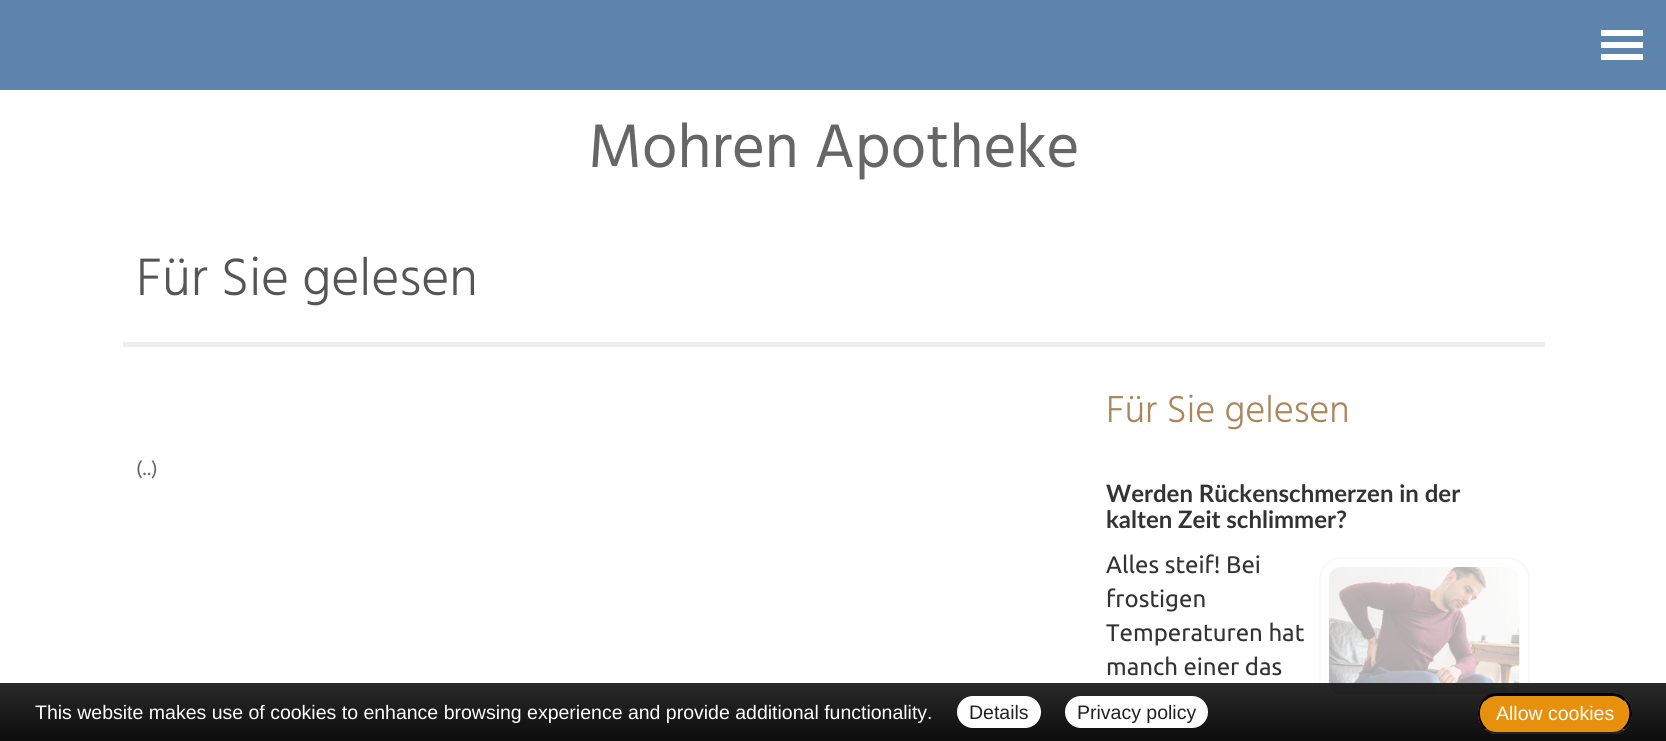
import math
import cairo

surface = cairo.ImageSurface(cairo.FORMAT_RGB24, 1666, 741)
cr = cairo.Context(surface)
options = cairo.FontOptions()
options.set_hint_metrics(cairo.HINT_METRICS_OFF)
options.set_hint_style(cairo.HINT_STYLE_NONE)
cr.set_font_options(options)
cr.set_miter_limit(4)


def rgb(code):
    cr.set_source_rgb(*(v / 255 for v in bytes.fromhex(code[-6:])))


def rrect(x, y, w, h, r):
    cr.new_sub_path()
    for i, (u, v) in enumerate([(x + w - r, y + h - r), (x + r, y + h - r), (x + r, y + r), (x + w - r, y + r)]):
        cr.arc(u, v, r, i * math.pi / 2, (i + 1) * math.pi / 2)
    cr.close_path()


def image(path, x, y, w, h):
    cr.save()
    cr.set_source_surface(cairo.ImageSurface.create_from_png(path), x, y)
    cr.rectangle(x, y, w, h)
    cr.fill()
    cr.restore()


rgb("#ffffff")
cr.paint()
for x, y, w, h, color in [
    (0, 0, 1666, 90, "#5c84ad"),
    (1601, 30, 42, 6, "#ffffff"),
    (1601, 42, 42, 6, "#ffffff"),
    (1601, 54, 42, 6, "#ffffff"),
    (123, 342, 1422, 5, "#eeeeee"),
]:
    rgb(color)
    cr.rectangle(x, y, w, h)
    cr.fill()
cr.new_path()
cr.move_to(1342, 558)
cr.line_to(1507, 558)
cr.curve_to(1519, 558, 1529, 568, 1529, 580)
cr.line_to(1529, 704)
cr.line_to(1342, 704)
cr.curve_to(1330, 704, 1320, 694, 1320, 682)
cr.line_to(1320, 580)
cr.curve_to(1320, 568, 1330, 558, 1342, 558)
cr.close_path()
rgb("#f9f9f9")
cr.stroke()
image("img/1.png", 1329, 567, 191, 128)
gradient = cairo.LinearGradient(833, 682, 833, 741)
gradient.add_color_stop_rgba(0, 0.118, 0.118, 0.118, 0.95)
gradient.add_color_stop_rgba(1, 0, 0, 0, 0.95)
cr.set_source(gradient)
cr.rectangle(0, 683, 1666, 58)
cr.fill()
rgb("#ffffff")
rrect(957, 696, 84, 32, 16)
cr.fill()
rrect(1065, 696, 143, 32, 16)
cr.fill()
rgb("#e6900e")
rrect(1478, 693, 154, 41, 20)
cr.fill()
rgb("#000000")
cr.new_path()
cr.move_to(1497, 693)
cr.curve_to(1491, 693, 1487, 695, 1483, 699)
cr.line_to(1485, 701)
cr.curve_to(1488, 698, 1492, 696, 1497, 696)
cr.line_to(1612, 696)
cr.curve_to(1617, 696, 1621, 698, 1624, 701)
cr.line_to(1626, 699)
cr.curve_to(1623, 695, 1618, 693, 1612, 693)
cr.close_path()
cr.fill()
cr.new_path()
cr.move_to(1632, 714)
cr.curve_to(1632, 708, 1630.5, 703, 1626, 699)
cr.line_to(1624.5, 700.5)
cr.curve_to(1632, 708, 1630.5, 722.5, 1622, 728.5)
cr.line_to(1624.5, 729.5)
cr.curve_to(1629, 726, 1632, 720.5, 1632, 714)
cr.close_path()
cr.fill()
rgb("#222222")
cr.new_path()
cr.move_to(1493, 734)
cr.curve_to(1490, 733, 1487, 732, 1485, 730)
cr.line_to(1487, 729)
cr.curve_to(1490, 731, 1493, 732, 1497, 732)
cr.line_to(1612, 732)
cr.curve_to(1616, 732, 1619, 731, 1622, 729)
cr.line_to(1624, 730)
cr.curve_to(1622, 732, 1619, 733, 1616, 734)
cr.close_path()
cr.fill()
rgb("#000000")
cr.new_path()
cr.move_to(1483.5, 699)
cr.curve_to(1475.5, 707, 1476.5, 722.5, 1485, 729.5)
cr.line_to(1487, 728.5)
cr.curve_to(1479, 722, 1477, 708, 1485, 700.5)
cr.close_path()
cr.fill()
cr.select_font_face("Hind")
cr.set_font_size(63)
rgb("#666666")
cr.move_to(588, 167)
cr.show_text("Mohren Apotheke")
cr.select_font_face("Hind Light")
cr.set_font_size(54)
rgb("#555555")
cr.move_to(136, 295)
cr.show_text("Für Sie gelesen")
cr.select_font_face("Ubuntu")
cr.set_font_size(19)
rgb("#666666")
cr.move_to(136, 475)
cr.show_text("(..)")
cr.select_font_face("Hind Light")
cr.set_font_size(38.5)
rgb("#ad855c")
cr.move_to(1106, 422)
cr.show_text("Für Sie gelesen")
cr.select_font_face("Lato", cairo.FONT_SLANT_NORMAL, cairo.FONT_WEIGHT_BOLD)
cr.set_font_size(24)
rgb("#333333")
cr.move_to(1106, 502)
cr.show_text("Werden Rückenschmerzen in der")
cr.move_to(1106, 528)
cr.show_text("kalten Zeit schlimmer?")
cr.select_font_face("Ubuntu")
for x, y, s in [
    (1106, 573, "Alles steif! Bei"),
    (1106, 607, "frostigen"),
    (1106, 641, "Temperaturen hat"),
    (1106, 675, "manch einer das"),
]:
    cr.move_to(x, y)
    cr.show_text(s)
cr.select_font_face("Liberation Sans")
cr.set_font_size(19.5)
rgb("#ffffff")
cr.move_to(35, 719)
cr.show_text("This website makes use of cookies to enhance browsing experience and provide additional functionality.")
rgb("#222222")
cr.move_to(969, 719)
cr.show_text("Details")
cr.move_to(1077, 719)
cr.show_text("Privacy policy")
rgb("#ffffff")
cr.move_to(1496, 720)
cr.show_text("Allow cookies")
surface.write_to_png("page.png")
